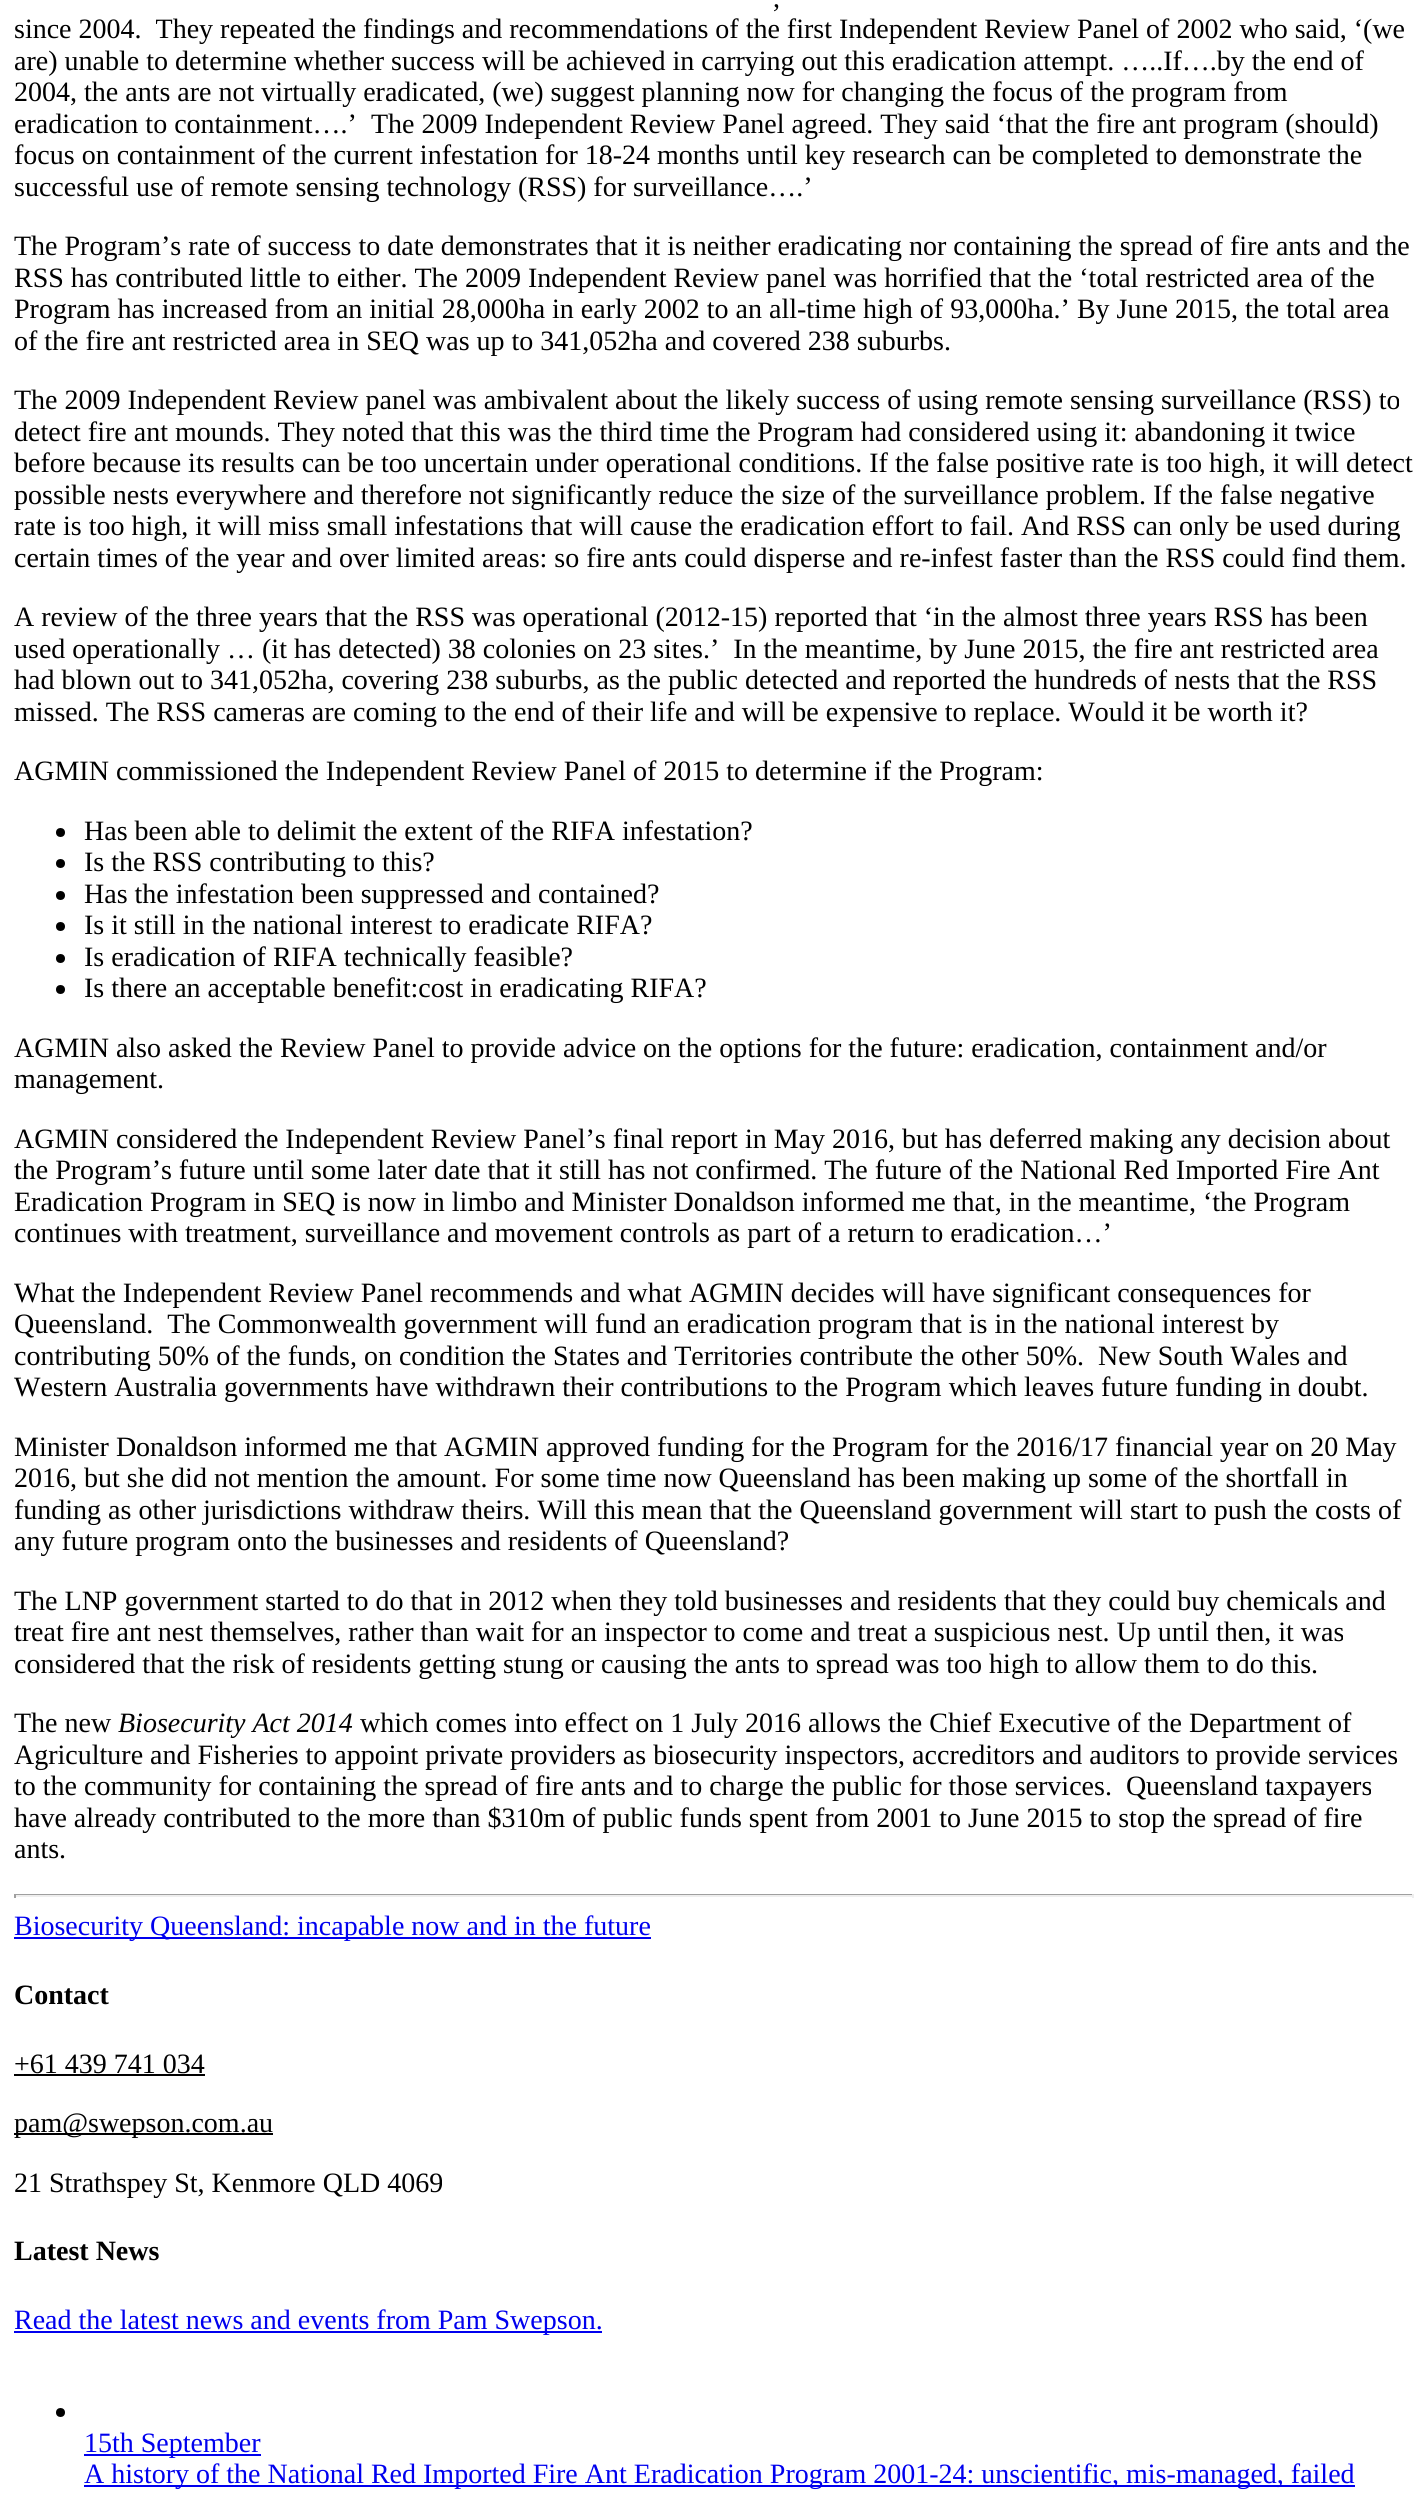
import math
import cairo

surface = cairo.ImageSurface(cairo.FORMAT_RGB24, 1428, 2502)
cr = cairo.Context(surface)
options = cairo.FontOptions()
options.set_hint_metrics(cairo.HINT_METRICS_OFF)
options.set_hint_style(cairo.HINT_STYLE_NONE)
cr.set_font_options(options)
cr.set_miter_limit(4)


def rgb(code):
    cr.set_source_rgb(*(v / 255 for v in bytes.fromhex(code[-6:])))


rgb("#ffffff")
cr.paint()
rgb("#000000")
cr.arc(60.5, 832.5, 4.5, 0, 2 * math.pi)
cr.fill()
cr.arc(60.5, 863.5, 4.5, 0, 2 * math.pi)
cr.fill()
cr.arc(60.5, 895.5, 4.5, 0, 2 * math.pi)
cr.fill()
cr.arc(60.5, 926.5, 4.5, 0, 2 * math.pi)
cr.fill()
cr.arc(60.5, 958.5, 4.5, 0, 2 * math.pi)
cr.fill()
cr.arc(60.5, 989.5, 4.5, 0, 2 * math.pi)
cr.fill()
for x, y, w, h, color in [
    (14, 1894, 1400, 1, "#9f9f9f"),
    (1412, 1894, 2, 4, "#eeeeee"),
    (14, 1895, 1400, 2, "#eeeeee"),
    (14, 1894, 2, 4, "#9f9f9f"),
    (14, 1937, 637, 2, "#0000ee"),
    (14, 2074, 191, 2, "#000000"),
    (14, 2133, 259, 2, "#000000"),
    (14, 2331, 588, 2, "#0000ee"),
]:
    rgb(color)
    cr.rectangle(x, y, w, h)
    cr.fill()
rgb("#000000")
cr.arc(60.5, 2412.5, 4.5, 0, 2 * math.pi)
cr.fill()
rgb("#0000ee")
cr.rectangle(84, 2454, 177, 2)
cr.fill()
cr.rectangle(84, 2485, 1271, 2)
cr.fill()
cr.select_font_face("Liberation Serif")
cr.set_font_size(28)
rgb("#000000")
for x, y, s in [
    (773, 7, ","),
    (14, 38, "since 2004.  They repeated the findings and recommendations of the first Independent Review Panel of 2002 who said, ‘(we"),
    (14, 70, "are) unable to determine whether success will be achieved in carrying out this eradication attempt. …..If….by the end of"),
    (14, 101, "2004, the ants are not virtually eradicated, (we) suggest planning now for changing the focus of the program from"),
    (14, 133, "eradication to containment….’  The 2009 Independent Review Panel agreed. They said ‘that the fire ant program (should)"),
    (14, 164, "focus on containment of the current infestation for 18-24 months until key research can be completed to demonstrate the"),
    (14, 196, "successful use of remote sensing technology (RSS) for surveillance….’"),
    (14, 255, "The Program’s rate of success to date demonstrates that it is neither eradicating nor containing the spread of fire ants and the"),
    (14, 287, "RSS has contributed little to either. The 2009 Independent Review panel was horrified that the ‘total restricted area of the"),
    (14, 318, "Program has increased from an initial 28,000ha in early 2002 to an all-time high of 93,000ha.’ By June 2015, the total area"),
    (14, 350, "of the fire ant restricted area in SEQ was up to 341,052ha and covered 238 suburbs."),
    (14, 409, "The 2009 Independent Review panel was ambivalent about the likely success of using remote sensing surveillance (RSS) to"),
    (14, 441, "detect fire ant mounds. They noted that this was the third time the Program had considered using it: abandoning it twice"),
    (14, 472, "before because its results can be too uncertain under operational conditions. If the false positive rate is too high, it will detect"),
    (14, 504, "possible nests everywhere and therefore not significantly reduce the size of the surveillance problem. If the false negative"),
    (14, 535, "rate is too high, it will miss small infestations that will cause the eradication effort to fail. And RSS can only be used during"),
    (14, 567, "certain times of the year and over limited areas: so fire ants could disperse and re-infest faster than the RSS could find them."),
    (14, 626, "A review of the three years that the RSS was operational (2012-15) reported that ‘in the almost three years RSS has been"),
    (14, 658, "used operationally … (it has detected) 38 colonies on 23 sites.’  In the meantime, by June 2015, the fire ant restricted area"),
    (14, 689, "had blown out to 341,052ha, covering 238 suburbs, as the public detected and reported the hundreds of nests that the RSS"),
    (14, 721, "missed. The RSS cameras are coming to the end of their life and will be expensive to replace. Would it be worth it?"),
    (14, 780, "AGMIN commissioned the Independent Review Panel of 2015 to determine if the Program:"),
    (84, 840, "Has been able to delimit the extent of the RIFA infestation?"),
    (84, 871, "Is the RSS contributing to this?"),
    (84, 903, "Has the infestation been suppressed and contained?"),
    (84, 934, "Is it still in the national interest to eradicate RIFA?"),
    (84, 966, "Is eradication of RIFA technically feasible?"),
    (84, 997, "Is there an acceptable benefit:cost in eradicating RIFA?"),
    (14, 1057, "AGMIN also asked the Review Panel to provide advice on the options for the future: eradication, containment and/or"),
    (14, 1088, "management."),
    (14, 1148, "AGMIN considered the Independent Review Panel’s final report in May 2016, but has deferred making any decision about"),
    (14, 1179, "the Program’s future until some later date that it still has not confirmed. The future of the National Red Imported Fire Ant"),
    (14, 1211, "Eradication Program in SEQ is now in limbo and Minister Donaldson informed me that, in the meantime, ‘the Program"),
    (14, 1242, "continues with treatment, surveillance and movement controls as part of a return to eradication…’"),
    (14, 1302, "What the Independent Review Panel recommends and what AGMIN decides will have significant consequences for"),
    (14, 1333, "Queensland.  The Commonwealth government will fund an eradication program that is in the national interest by"),
    (14, 1365, "contributing 50% of the funds, on condition the States and Territories contribute the other 50%.  New South Wales and"),
    (14, 1396, "Western Australia governments have withdrawn their contributions to the Program which leaves future funding in doubt."),
    (14, 1456, "Minister Donaldson informed me that AGMIN approved funding for the Program for the 2016/17 financial year on 20 May"),
    (14, 1487, "2016, but she did not mention the amount. For some time now Queensland has been making up some of the shortfall in"),
    (14, 1519, "funding as other jurisdictions withdraw theirs. Will this mean that the Queensland government will start to push the costs of"),
    (14, 1550, "any future program onto the businesses and residents of Queensland?"),
    (14, 1610, "The LNP government started to do that in 2012 when they told businesses and residents that they could buy chemicals and"),
    (14, 1641, "treat fire ant nest themselves, rather than wait for an inspector to come and treat a suspicious nest. Up until then, it was"),
    (14, 1673, "considered that the risk of residents getting stung or causing the ants to spread was too high to allow them to do this."),
    (14, 1732, "The new"),
]:
    cr.move_to(x, y)
    cr.show_text(s)
cr.select_font_face("Liberation Serif", cairo.FONT_SLANT_ITALIC)
cr.move_to(118, 1732)
cr.show_text("Biosecurity Act 2014")
cr.select_font_face("Liberation Serif")
for x, y, s in [
    (360, 1732, "which comes into effect on 1 July 2016 allows the Chief Executive of the Department of"),
    (14, 1764, "Agriculture and Fisheries to appoint private providers as biosecurity inspectors, accreditors and auditors to provide services"),
    (14, 1795, "to the community for containing the spread of fire ants and to charge the public for those services.  Queensland taxpayers"),
    (14, 1827, "have already contributed to the more than $310m of public funds spent from 2001 to June 2015 to stop the spread of fire"),
    (14, 1858, "ants."),
]:
    cr.move_to(x, y)
    cr.show_text(s)
rgb("#0000ee")
cr.move_to(14, 1935)
cr.show_text("Biosecurity Queensland: incapable now and in the future")
cr.select_font_face("Liberation Serif", cairo.FONT_SLANT_NORMAL, cairo.FONT_WEIGHT_BOLD)
rgb("#000000")
cr.move_to(14, 2004)
cr.show_text("Contact")
cr.select_font_face("Liberation Serif")
for x, y, s in [
    (14, 2073, "+61 439 741 034"),
    (14, 2132, "pam@swepson.com.au"),
    (14, 2192, "21 Strathspey St, Kenmore QLD 4069"),
]:
    cr.move_to(x, y)
    cr.show_text(s)
cr.select_font_face("Liberation Serif", cairo.FONT_SLANT_NORMAL, cairo.FONT_WEIGHT_BOLD)
cr.move_to(14, 2260)
cr.show_text("Latest News")
cr.select_font_face("Liberation Serif")
rgb("#0000ee")
for x, y, s in [
    (14, 2329, "Read the latest news and events from Pam Swepson."),
    (84, 2452, "15th September"),
    (84, 2483, "A history of the National Red Imported Fire Ant Eradication Program 2001-24: unscientific, mis-managed, failed"),
]:
    cr.move_to(x, y)
    cr.show_text(s)
surface.write_to_png("page.png")
